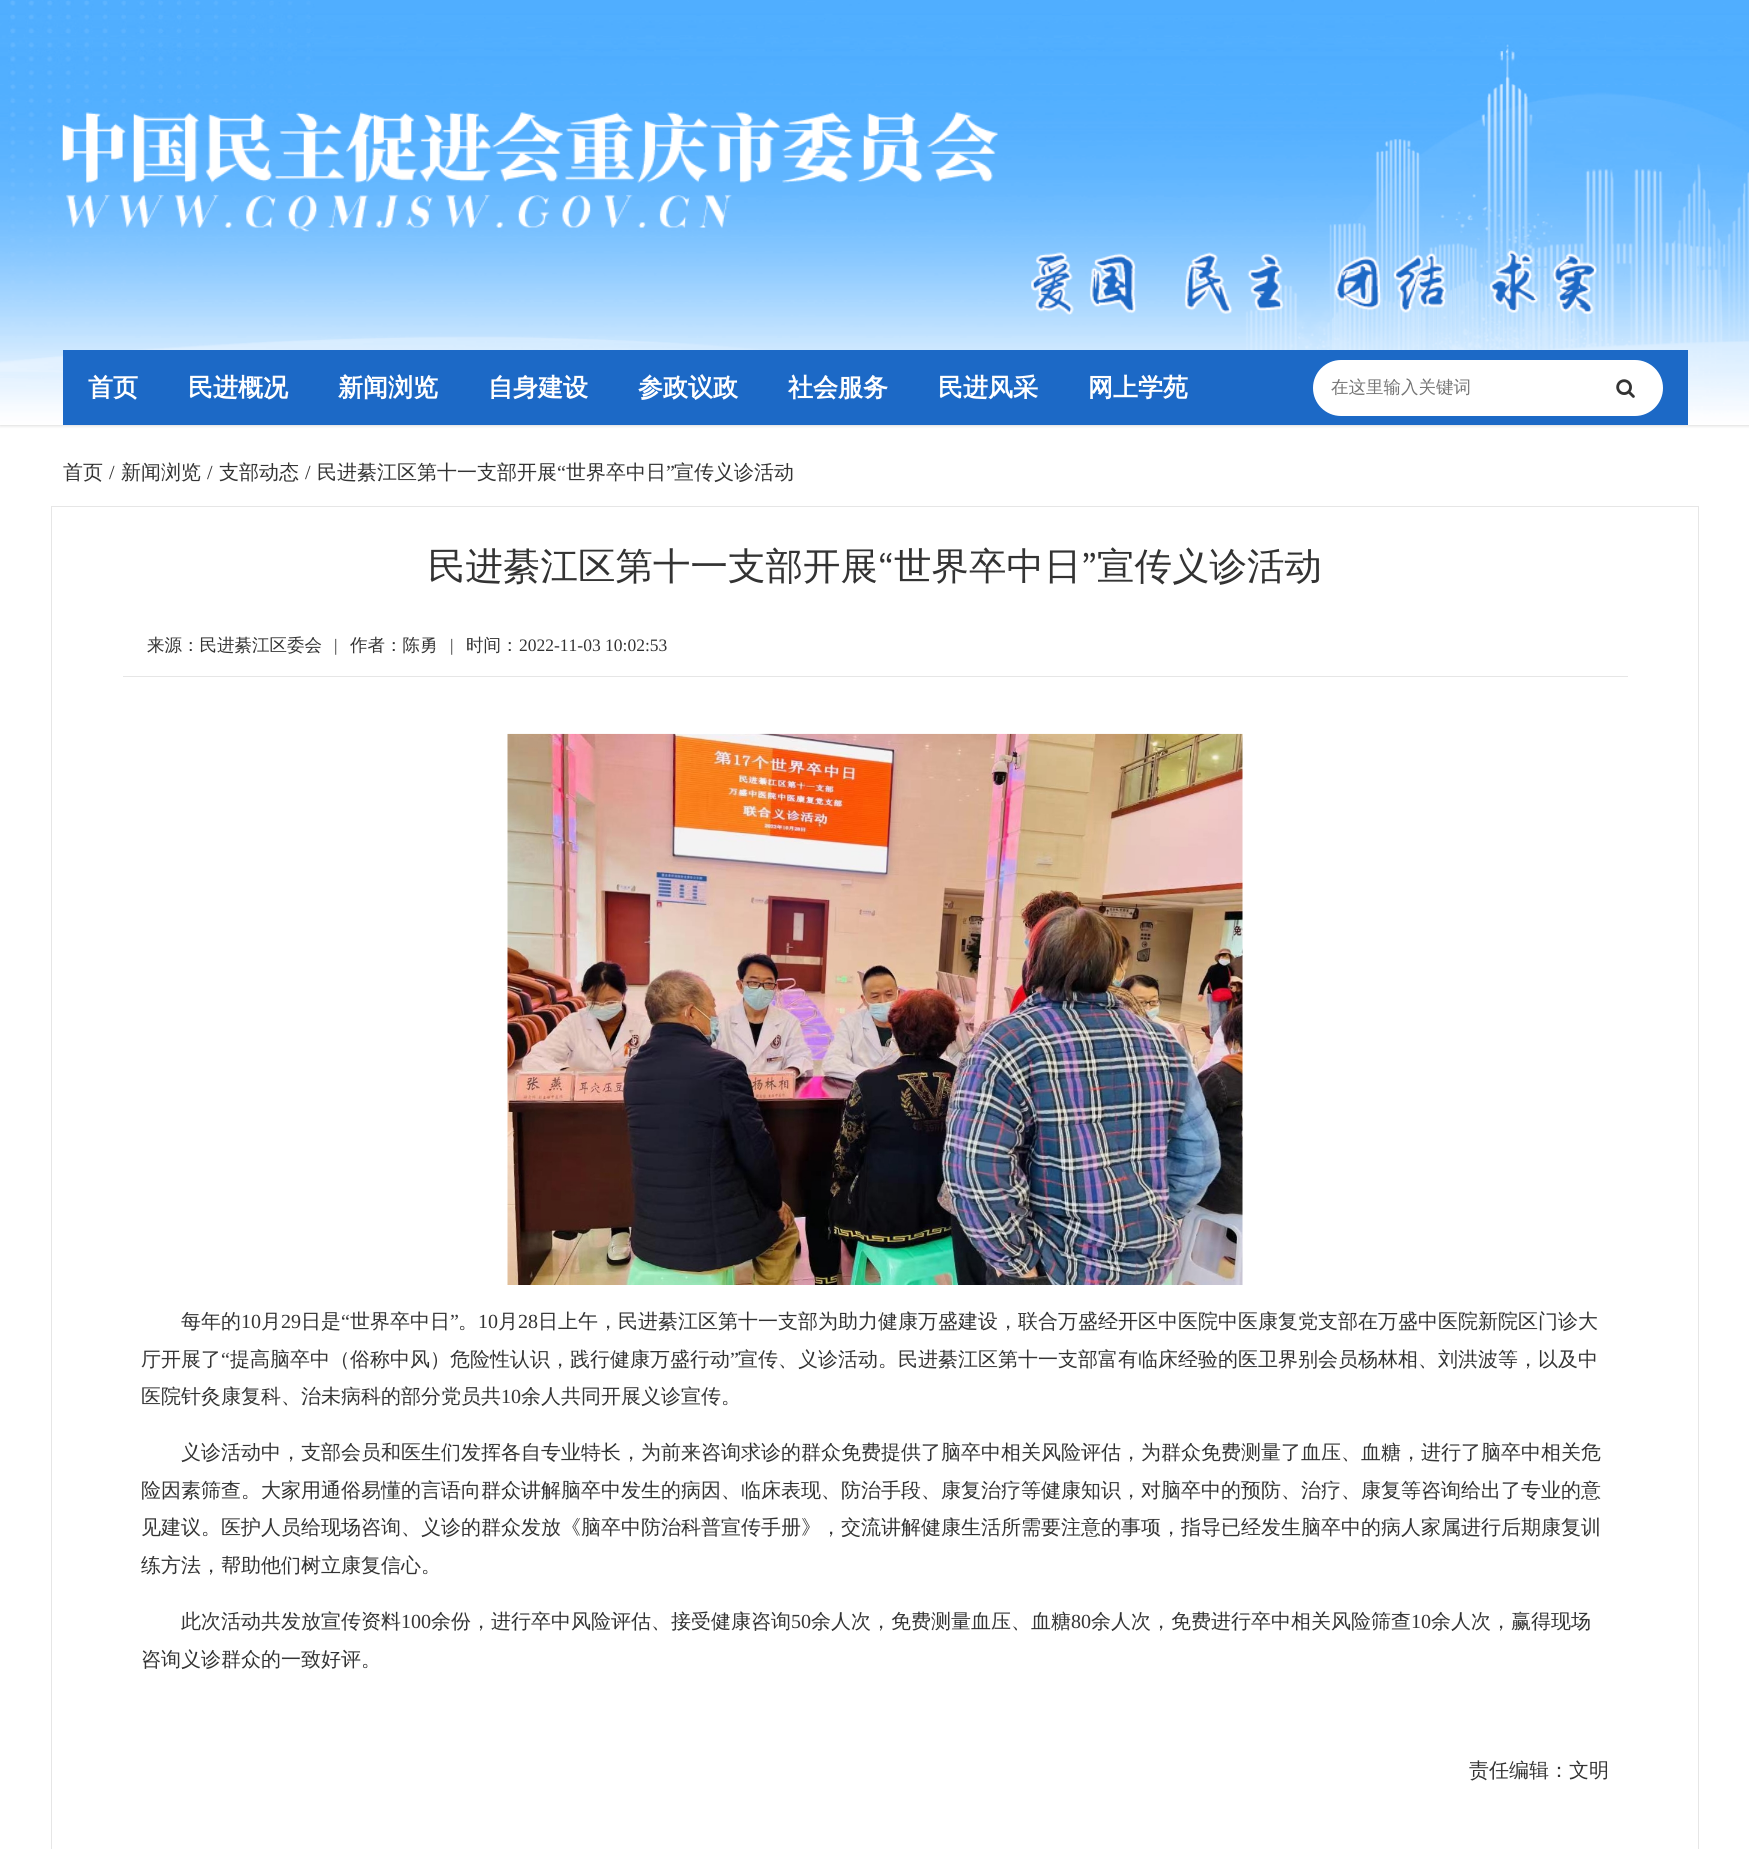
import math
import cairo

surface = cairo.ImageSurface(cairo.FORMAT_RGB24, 1749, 1849)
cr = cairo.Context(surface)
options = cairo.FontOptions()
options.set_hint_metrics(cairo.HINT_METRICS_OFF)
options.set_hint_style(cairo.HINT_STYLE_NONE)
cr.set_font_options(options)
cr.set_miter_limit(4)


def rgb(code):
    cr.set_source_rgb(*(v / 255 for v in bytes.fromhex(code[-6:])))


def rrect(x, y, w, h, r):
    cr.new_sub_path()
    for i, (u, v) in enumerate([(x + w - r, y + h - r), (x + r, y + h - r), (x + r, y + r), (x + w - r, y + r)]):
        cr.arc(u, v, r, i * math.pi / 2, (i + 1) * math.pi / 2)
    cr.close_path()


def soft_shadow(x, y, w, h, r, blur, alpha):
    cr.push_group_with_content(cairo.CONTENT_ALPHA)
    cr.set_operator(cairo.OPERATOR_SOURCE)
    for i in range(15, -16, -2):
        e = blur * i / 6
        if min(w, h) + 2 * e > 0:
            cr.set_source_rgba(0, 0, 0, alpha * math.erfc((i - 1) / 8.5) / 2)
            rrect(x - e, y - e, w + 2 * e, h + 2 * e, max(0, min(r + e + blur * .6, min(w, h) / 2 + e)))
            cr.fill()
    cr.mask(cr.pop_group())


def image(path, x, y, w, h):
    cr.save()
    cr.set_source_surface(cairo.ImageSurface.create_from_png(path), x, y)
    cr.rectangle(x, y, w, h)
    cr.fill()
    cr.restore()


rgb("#ffffff")
cr.paint()
rgb("#000000")
soft_shadow(0, 0, 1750, 425, 0, 2, 0.22)
image("img/1.png", 0, 0, 1749, 425)
rgb("#1c69c6")
cr.rectangle(63, 350, 1625, 75)
cr.fill()
image("img/2.png", 62, 112, 936, 120)
image("img/3.png", 1031, 250, 566, 65)
rgb("#ffffff")
rrect(1313, 360, 350, 56, 28)
cr.fill()
image("img/4.png", 1616, 379, 19, 19)
cr.rectangle(51.5, 506.5, 1647, 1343)
rgb("#e6e6e6")
cr.set_line_width(1)
cr.stroke()
cr.rectangle(123, 676, 1505, 1)
cr.fill()
image("img/5.png", 507, 733, 736, 552)
cr.select_font_face("WenQuanYi Zen Hei", cairo.FONT_SLANT_NORMAL, cairo.FONT_WEIGHT_BOLD)
cr.set_font_size(25)
rgb("#ffffff")
for x, y, s in [
    (88, 396, "首页"),
    (188, 396, "民进概况"),
    (338, 396, "新闻浏览"),
    (488, 396, "自身建设"),
    (638, 396, "参政议政"),
    (788, 396, "社会服务"),
    (938, 396, "民进风采"),
    (1088, 396, "网上学苑"),
]:
    cr.move_to(x, y)
    cr.show_text(s)
cr.select_font_face("WenQuanYi Zen Hei Medium")
cr.set_font_size(17.5)
rgb("#757575")
cr.move_to(1331, 393)
cr.show_text("在这里输入关键词")
cr.set_font_size(20)
rgb("#333333")
cr.move_to(63, 479)
cr.show_text("首页")
cr.select_font_face("Liberation Serif")
cr.move_to(109, 479)
cr.show_text("/")
cr.select_font_face("WenQuanYi Zen Hei Medium")
cr.move_to(121, 479)
cr.show_text("新闻浏览")
cr.select_font_face("Liberation Serif")
cr.move_to(207, 479)
cr.show_text("/")
cr.select_font_face("WenQuanYi Zen Hei Medium")
cr.move_to(219, 479)
cr.show_text("支部动态")
cr.select_font_face("Liberation Serif")
cr.move_to(305, 479)
cr.show_text("/")
cr.select_font_face("WenQuanYi Zen Hei Medium")
cr.move_to(317, 479)
cr.show_text("民进綦江区第十一支部开展")
cr.select_font_face("Liberation Serif")
cr.move_to(557, 479)
cr.show_text("“")
cr.select_font_face("WenQuanYi Zen Hei Medium")
cr.move_to(566, 479)
cr.show_text("世界卒中日")
cr.select_font_face("Liberation Serif")
cr.move_to(666, 479)
cr.show_text("”")
cr.select_font_face("WenQuanYi Zen Hei Medium")
cr.move_to(674, 479)
cr.show_text("宣传义诊活动")
cr.set_font_size(37.5)
cr.move_to(428, 579)
cr.show_text("民进綦江区第十一支部开展")
cr.select_font_face("Mada")
cr.move_to(878, 579)
cr.show_text("“")
cr.select_font_face("WenQuanYi Zen Hei Medium")
cr.move_to(894, 579)
cr.show_text("世界卒中日")
cr.select_font_face("Mada")
cr.move_to(1081, 579)
cr.show_text("”")
cr.select_font_face("WenQuanYi Zen Hei Medium")
cr.move_to(1097, 579)
cr.show_text("宣传义诊活动")
cr.set_font_size(17.5)
cr.move_to(147, 651)
cr.show_text("来源：民进綦江区委会")
cr.select_font_face("Liberation Serif")
cr.move_to(334, 651)
cr.show_text("|")
cr.select_font_face("WenQuanYi Zen Hei Medium")
cr.move_to(350, 651)
cr.show_text("作者：陈勇")
cr.select_font_face("Liberation Serif")
cr.move_to(450, 651)
cr.show_text("|")
cr.select_font_face("WenQuanYi Zen Hei Medium")
cr.move_to(466, 651)
cr.show_text("时间：")
cr.select_font_face("Liberation Serif")
cr.move_to(519, 651)
cr.show_text("2022-11-03 10:02:53")
cr.select_font_face("WenQuanYi Zen Hei Medium")
cr.set_font_size(20)
cr.move_to(181, 1328)
cr.show_text("每年的")
cr.select_font_face("Liberation Serif")
cr.move_to(241, 1328)
cr.show_text("10")
cr.select_font_face("WenQuanYi Zen Hei Medium")
cr.move_to(261, 1328)
cr.show_text("月")
cr.select_font_face("Liberation Serif")
cr.move_to(281, 1328)
cr.show_text("29")
cr.select_font_face("WenQuanYi Zen Hei Medium")
cr.move_to(301, 1328)
cr.show_text("日是")
cr.select_font_face("Liberation Serif")
cr.move_to(341, 1328)
cr.show_text("“")
cr.select_font_face("WenQuanYi Zen Hei Medium")
cr.move_to(350, 1328)
cr.show_text("世界卒中日")
cr.select_font_face("Liberation Serif")
cr.move_to(450, 1328)
cr.show_text("”")
cr.select_font_face("WenQuanYi Zen Hei Medium")
cr.move_to(458, 1328)
cr.show_text("。")
cr.select_font_face("Liberation Serif")
cr.move_to(478, 1328)
cr.show_text("10")
cr.select_font_face("WenQuanYi Zen Hei Medium")
cr.move_to(498, 1328)
cr.show_text("月")
cr.select_font_face("Liberation Serif")
cr.move_to(518, 1328)
cr.show_text("28")
cr.select_font_face("WenQuanYi Zen Hei Medium")
cr.move_to(538, 1328)
cr.show_text("日上午，民进綦江区第十一支部为助力健康万盛建设，联合万盛经开区中医院中医康复党支部在万盛中医院新院区门诊大")
cr.move_to(141, 1366)
cr.show_text("厅开展了")
cr.select_font_face("Liberation Serif")
cr.move_to(221, 1366)
cr.show_text("“")
cr.select_font_face("WenQuanYi Zen Hei Medium")
cr.move_to(230, 1366)
cr.show_text("提高脑卒中（俗称中风）危险性认识，践行健康万盛行动")
cr.select_font_face("Liberation Serif")
cr.move_to(730, 1366)
cr.show_text("”")
cr.select_font_face("WenQuanYi Zen Hei Medium")
cr.move_to(738, 1366)
cr.show_text("宣传、义诊活动。民进綦江区第十一支部富有临床经验的医卫界别会员杨林相、刘洪波等，以及中")
cr.move_to(141, 1403)
cr.show_text("医院针灸康复科、治未病科的部分党员共")
cr.select_font_face("Liberation Serif")
cr.move_to(501, 1403)
cr.show_text("10")
cr.select_font_face("WenQuanYi Zen Hei Medium")
for x, y, s in [
    (521, 1403, "余人共同开展义诊宣传。"),
    (181, 1459, "义诊活动中，支部会员和医生们发挥各自专业特长，为前来咨询求诊的群众免费提供了脑卒中相关风险评估，为群众免费测量了血压、血糖，进行了脑卒中相关危"),
    (141, 1497, "险因素筛查。大家用通俗易懂的言语向群众讲解脑卒中发生的病因、临床表现、防治手段、康复治疗等健康知识，对脑卒中的预防、治疗、康复等咨询给出了专业的意"),
    (141, 1534, "见建议。医护人员给现场咨询、义诊的群众发放《脑卒中防治科普宣传手册》，交流讲解健康生活所需要注意的事项，指导已经发生脑卒中的病人家属进行后期康复训"),
    (141, 1572, "练方法，帮助他们树立康复信心。"),
    (181, 1628, "此次活动共发放宣传资料"),
]:
    cr.move_to(x, y)
    cr.show_text(s)
cr.select_font_face("Liberation Serif")
cr.move_to(401, 1628)
cr.show_text("100")
cr.select_font_face("WenQuanYi Zen Hei Medium")
cr.move_to(431, 1628)
cr.show_text("余份，进行卒中风险评估、接受健康咨询")
cr.select_font_face("Liberation Serif")
cr.move_to(791, 1628)
cr.show_text("50")
cr.select_font_face("WenQuanYi Zen Hei Medium")
cr.move_to(811, 1628)
cr.show_text("余人次，免费测量血压、血糖")
cr.select_font_face("Liberation Serif")
cr.move_to(1071, 1628)
cr.show_text("80")
cr.select_font_face("WenQuanYi Zen Hei Medium")
cr.move_to(1091, 1628)
cr.show_text("余人次，免费进行卒中相关风险筛查")
cr.select_font_face("Liberation Serif")
cr.move_to(1411, 1628)
cr.show_text("10")
cr.select_font_face("WenQuanYi Zen Hei Medium")
for x, y, s in [
    (1431, 1628, "余人次，赢得现场"),
    (141, 1666, "咨询义诊群众的一致好评。"),
    (1469, 1777, "责任编辑：文明"),
]:
    cr.move_to(x, y)
    cr.show_text(s)
surface.write_to_png("page.png")
